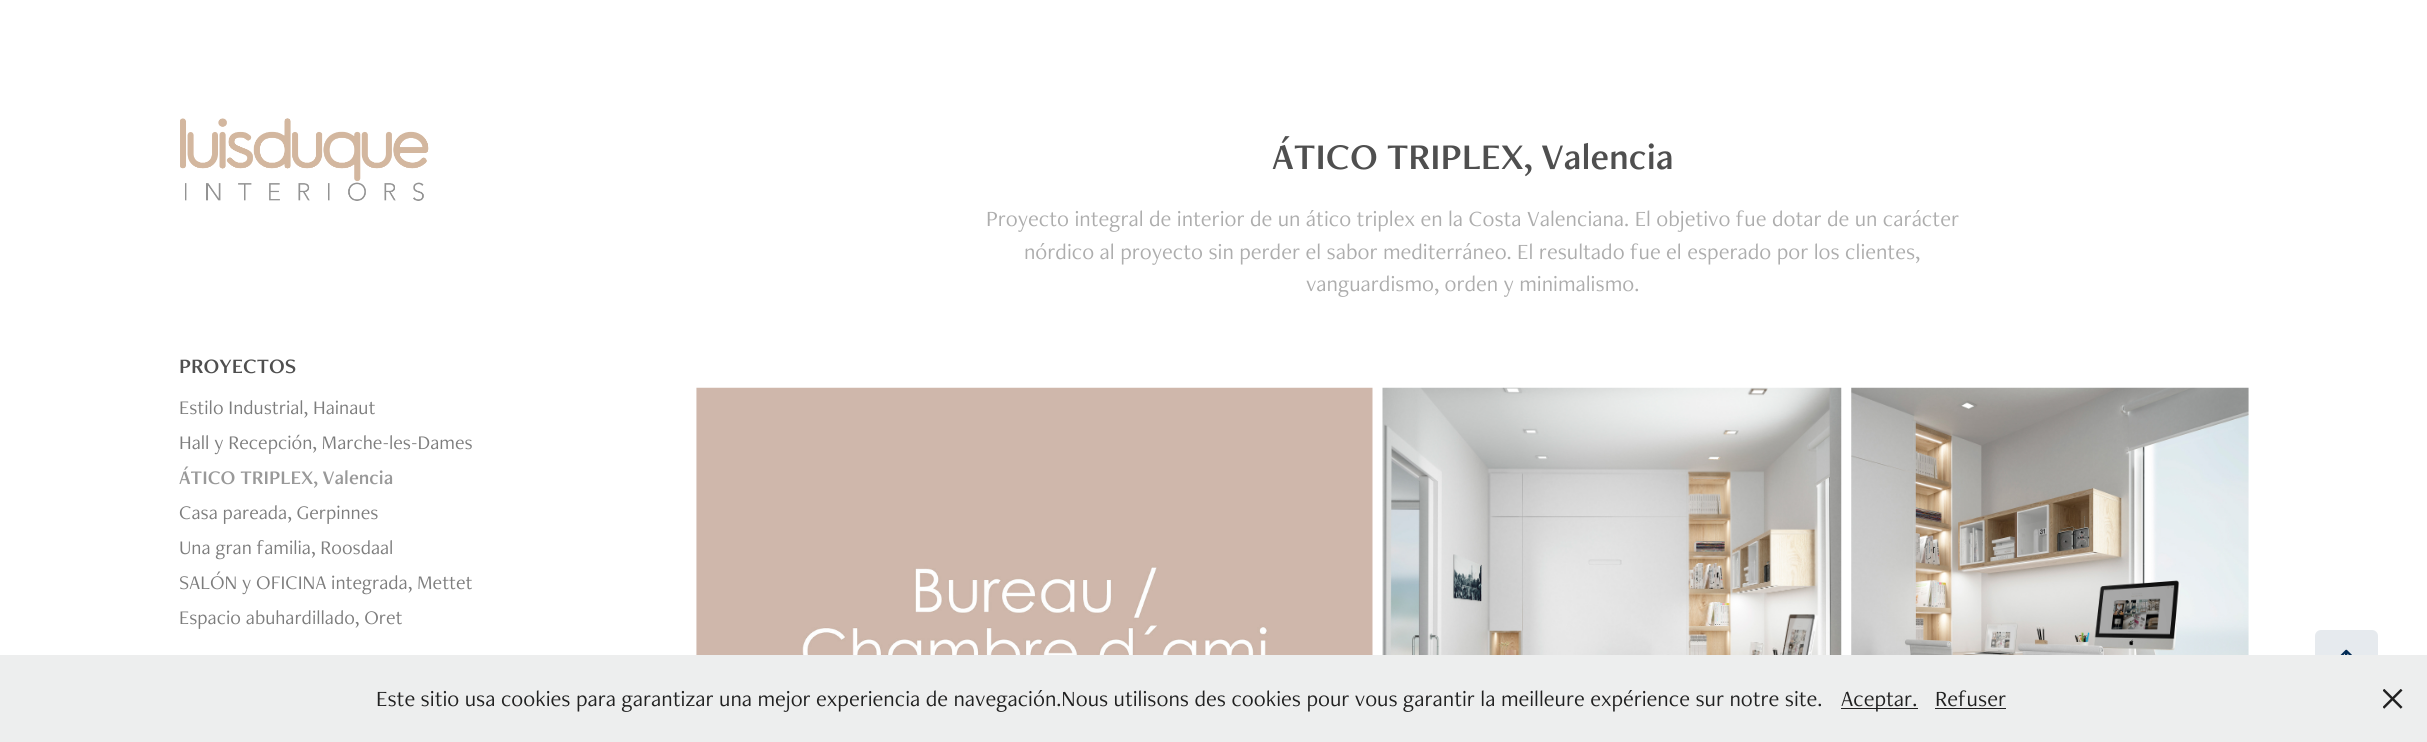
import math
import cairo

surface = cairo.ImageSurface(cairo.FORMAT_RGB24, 2427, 742)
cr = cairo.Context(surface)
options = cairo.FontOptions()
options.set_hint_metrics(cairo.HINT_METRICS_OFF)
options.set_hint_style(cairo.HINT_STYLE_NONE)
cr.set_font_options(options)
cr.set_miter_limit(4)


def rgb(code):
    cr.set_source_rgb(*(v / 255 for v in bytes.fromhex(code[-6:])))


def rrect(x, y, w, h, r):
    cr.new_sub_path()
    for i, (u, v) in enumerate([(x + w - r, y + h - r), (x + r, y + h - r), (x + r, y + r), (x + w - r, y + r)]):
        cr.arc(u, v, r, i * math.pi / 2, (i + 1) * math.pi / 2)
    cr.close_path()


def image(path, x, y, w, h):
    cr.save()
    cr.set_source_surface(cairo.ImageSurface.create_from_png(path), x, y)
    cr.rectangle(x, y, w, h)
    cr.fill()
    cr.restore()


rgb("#ffffff")
cr.paint()
image("img/1.png", 696, 387, 677, 268)
image("img/2.png", 1382, 387, 460, 268)
image("img/3.png", 1851, 387, 398, 268)
rgb("#e6eaee")
rrect(2315, 630, 63, 63, 6)
cr.fill()
image("img/4.png", 2340, 649, 12, 6)
image("img/5.png", 180, 118, 249, 83)
for x, y, w, h, color in [
    (0, 655, 2427, 87, "#edeeee"),
    (1841, 708, 77, 1, "#212121"),
    (1935, 708, 71, 1, "#212121"),
]:
    rgb(color)
    cr.rectangle(x, y, w, h)
    cr.fill()
image("img/6.png", 2383, 689, 20, 20)
cr.select_font_face("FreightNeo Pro")
cr.set_font_size(37.5)
rgb("#4f4f4f")
cr.move_to(1272, 169)
cr.show_text("ÁTICO TRIPLEX, Valencia")
cr.select_font_face("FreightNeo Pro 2")
cr.set_font_size(22.5)
rgb("#adadad")
for x, y, s in [
    (986, 226, "Proyecto integral de interior de un ático triplex en la Costa Valenciana. El objetivo fue dotar de un carácter"),
    (1024, 259, "nórdico al proyecto sin perder el sabor mediterráneo. El resultado fue el esperado por los clientes,"),
    (1306, 291, "vanguardismo, orden y minimalismo."),
]:
    cr.move_to(x, y)
    cr.show_text(s)
cr.select_font_face("FreightNeo Pro")
cr.set_font_size(21.25)
rgb("#4f4f4f")
cr.move_to(179, 373)
cr.show_text("PROYECTOS")
cr.select_font_face("FreightNeo Pro 2")
cr.set_font_size(20)
rgb("#7d7d7d")
cr.move_to(179, 414)
cr.show_text("Estilo Industrial, Hainaut")
cr.move_to(179, 449)
cr.show_text("Hall y Recepción, Marche-les-Dames")
cr.select_font_face("FreightNeo Pro")
rgb("#999999")
cr.move_to(179, 484)
cr.show_text("ÁTICO TRIPLEX, Valencia")
cr.select_font_face("FreightNeo Pro 2")
rgb("#7d7d7d")
for x, y, s in [
    (179, 519, "Casa pareada, Gerpinnes"),
    (179, 554, "Una gran familia, Roosdaal"),
    (179, 589, "SALÓN y OFICINA integrada, Mettet"),
    (179, 624, "Espacio abuhardillado, Oret"),
]:
    cr.move_to(x, y)
    cr.show_text(s)
cr.set_font_size(22.5)
rgb("#212121")
for x, y, s in [
    (376, 706, "Este sitio usa cookies para garantizar una mejor experiencia de navegación.Nous utilisons des cookies pour vous garantir la meilleure expérience sur notre site."),
    (1841, 706, "Aceptar."),
    (1935, 706, "Refuser"),
]:
    cr.move_to(x, y)
    cr.show_text(s)
surface.write_to_png("page.png")
